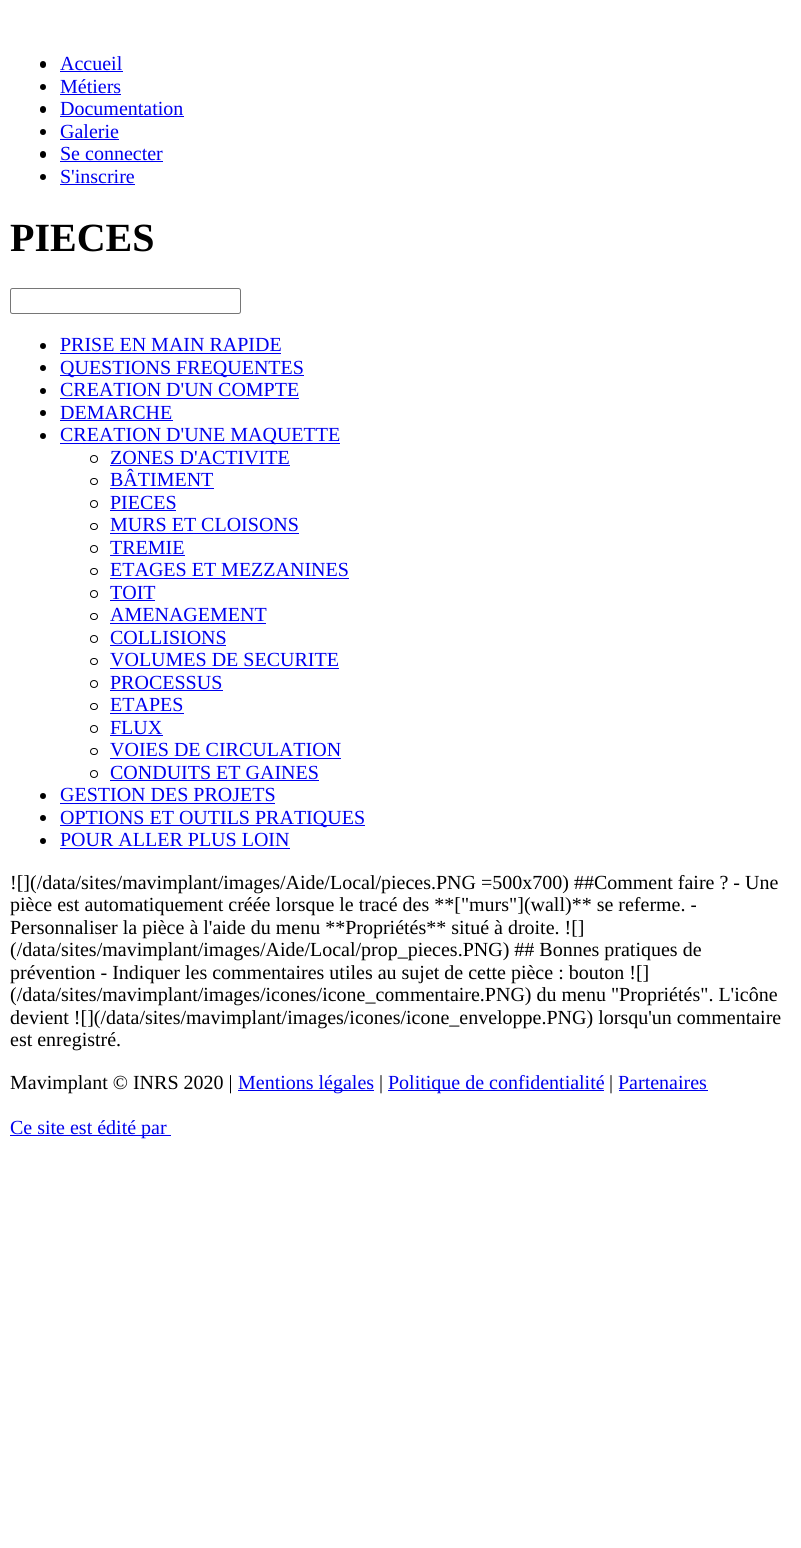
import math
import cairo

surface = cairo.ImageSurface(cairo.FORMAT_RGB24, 801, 1548)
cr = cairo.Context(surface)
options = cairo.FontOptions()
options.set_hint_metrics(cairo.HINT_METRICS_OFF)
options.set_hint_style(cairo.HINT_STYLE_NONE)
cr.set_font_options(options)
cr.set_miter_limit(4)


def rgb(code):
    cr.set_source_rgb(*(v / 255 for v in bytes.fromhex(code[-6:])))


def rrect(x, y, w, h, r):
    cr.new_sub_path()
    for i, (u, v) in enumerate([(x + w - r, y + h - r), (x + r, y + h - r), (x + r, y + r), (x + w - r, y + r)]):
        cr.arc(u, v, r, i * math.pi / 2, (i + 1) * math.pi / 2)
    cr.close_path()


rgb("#ffffff")
cr.paint()
rgb("#000000")
rrect(40, 61, 6, 7, 3)
cr.fill()
rgb("#0000ee")
cr.rectangle(60, 71, 63, 1)
cr.fill()
rgb("#000000")
cr.arc(43, 87, 3, 0, 2 * math.pi)
cr.fill()
rgb("#0000ee")
cr.rectangle(60, 94, 61, 1)
cr.fill()
rgb("#000000")
rrect(40, 106, 6, 7, 3)
cr.fill()
rgb("#0000ee")
cr.rectangle(60, 116, 124, 1)
cr.fill()
rgb("#000000")
cr.arc(43, 132, 3, 0, 2 * math.pi)
cr.fill()
rgb("#0000ee")
cr.rectangle(60, 139, 59, 1)
cr.fill()
rgb("#000000")
rrect(40, 151, 6, 7, 3)
cr.fill()
rgb("#0000ee")
cr.rectangle(60, 161, 103, 1)
cr.fill()
rgb("#000000")
cr.arc(43, 177, 3, 0, 2 * math.pi)
cr.fill()
rgb("#0000ee")
cr.rectangle(60, 184, 75, 1)
cr.fill()
rrect(10.5, 288.5, 230, 25, 2)
rgb("#767676")
cr.set_line_width(1)
cr.stroke()
rgb("#000000")
cr.arc(43, 346, 3, 0, 2 * math.pi)
cr.fill()
rgb("#0000ee")
cr.rectangle(60, 353, 221, 1)
cr.fill()
rgb("#000000")
cr.arc(43, 368, 3, 0, 2 * math.pi)
cr.fill()
rgb("#0000ee")
cr.rectangle(60, 375, 244, 1)
cr.fill()
rgb("#000000")
cr.arc(43, 391, 3, 0, 2 * math.pi)
cr.fill()
rgb("#0000ee")
cr.rectangle(60, 398, 239, 1)
cr.fill()
rgb("#000000")
cr.arc(43, 413, 3, 0, 2 * math.pi)
cr.fill()
rgb("#0000ee")
cr.rectangle(60, 420, 113, 1)
cr.fill()
rgb("#000000")
cr.arc(43, 436, 3, 0, 2 * math.pi)
cr.fill()
rgb("#0000ee")
cr.rectangle(60, 443, 280, 1)
cr.fill()
cr.arc(94, 459, 3.5, 0, 2 * math.pi)
rgb("#000000")
cr.stroke()
rgb("#0000ee")
cr.rectangle(110, 465, 180, 1)
cr.fill()
rrect(90.5, 478.5, 7, 6, 3)
rgb("#000000")
cr.stroke()
rgb("#0000ee")
cr.rectangle(110, 488, 104, 1)
cr.fill()
cr.arc(94, 504, 3.5, 0, 2 * math.pi)
rgb("#000000")
cr.stroke()
rgb("#0000ee")
cr.rectangle(110, 510, 66, 1)
cr.fill()
rrect(90.5, 523.5, 7, 6, 3)
rgb("#000000")
cr.stroke()
rgb("#0000ee")
cr.rectangle(110, 533, 189, 1)
cr.fill()
cr.arc(94, 549, 3.5, 0, 2 * math.pi)
rgb("#000000")
cr.stroke()
rgb("#0000ee")
cr.rectangle(110, 555, 75, 1)
cr.fill()
rrect(90.5, 568.5, 7, 6, 3)
rgb("#000000")
cr.stroke()
rgb("#0000ee")
cr.rectangle(110, 578, 239, 1)
cr.fill()
cr.arc(94, 594, 3.5, 0, 2 * math.pi)
rgb("#000000")
cr.stroke()
rgb("#0000ee")
cr.rectangle(110, 600, 45, 1)
cr.fill()
rrect(90.5, 613.5, 7, 6, 3)
rgb("#000000")
cr.stroke()
rgb("#0000ee")
cr.rectangle(110, 623, 156, 1)
cr.fill()
cr.arc(94, 639, 3.5, 0, 2 * math.pi)
rgb("#000000")
cr.stroke()
rgb("#0000ee")
cr.rectangle(110, 645, 116, 1)
cr.fill()
rrect(90.5, 658.5, 7, 6, 3)
rgb("#000000")
cr.stroke()
rgb("#0000ee")
cr.rectangle(110, 668, 229, 1)
cr.fill()
cr.arc(94, 684, 3.5, 0, 2 * math.pi)
rgb("#000000")
cr.stroke()
rgb("#0000ee")
cr.rectangle(110, 690, 113, 1)
cr.fill()
rrect(90.5, 703.5, 7, 6, 3)
rgb("#000000")
cr.stroke()
rgb("#0000ee")
cr.rectangle(110, 713, 74, 1)
cr.fill()
cr.arc(94, 729, 3.5, 0, 2 * math.pi)
rgb("#000000")
cr.stroke()
rgb("#0000ee")
cr.rectangle(110, 735, 53, 1)
cr.fill()
rrect(90.5, 748.5, 7, 6, 3)
rgb("#000000")
cr.stroke()
rgb("#0000ee")
cr.rectangle(110, 758, 231, 1)
cr.fill()
cr.arc(94, 774, 3.5, 0, 2 * math.pi)
rgb("#000000")
cr.stroke()
rgb("#0000ee")
cr.rectangle(110, 780, 209, 1)
cr.fill()
rgb("#000000")
cr.arc(43, 796, 3, 0, 2 * math.pi)
cr.fill()
rgb("#0000ee")
cr.rectangle(60, 803, 215, 1)
cr.fill()
rgb("#000000")
cr.arc(43, 818, 3, 0, 2 * math.pi)
cr.fill()
rgb("#0000ee")
cr.rectangle(60, 825, 305, 1)
cr.fill()
rgb("#000000")
cr.arc(43, 841, 3, 0, 2 * math.pi)
cr.fill()
for x, y, w, h, color in [
    (60, 848, 230, 1, "#0000ee"),
    (238, 1090, 136, 1, "#0000ee"),
    (388, 1090, 216, 1, "#0000ee"),
    (619, 1090, 89, 1, "#0000ee"),
    (10, 1135, 161, 1, "#0000ee"),
]:
    rgb(color)
    cr.rectangle(x, y, w, h)
    cr.fill()
cr.select_font_face("Liberation Serif")
cr.set_font_size(20)
for x, y, s in [
    (60, 70, "Accueil"),
    (60, 93, "Métiers"),
    (60, 115, "Documentation"),
    (60, 138, "Galerie"),
    (60, 160, "Se connecter"),
    (60, 183, "S'inscrire"),
]:
    cr.move_to(x, y)
    cr.show_text(s)
cr.select_font_face("Liberation Serif", cairo.FONT_SLANT_NORMAL, cairo.FONT_WEIGHT_BOLD)
cr.set_font_size(40)
rgb("#000000")
cr.move_to(10, 251)
cr.show_text("PIECES")
cr.select_font_face("Liberation Serif")
cr.set_font_size(20)
rgb("#0000ee")
for x, y, s in [
    (60, 351, "PRISE EN MAIN RAPIDE"),
    (60, 374, "QUESTIONS FREQUENTES"),
    (60, 396, "CREATION D'UN COMPTE"),
    (60, 419, "DEMARCHE"),
    (60, 441, "CREATION D'UNE MAQUETTE"),
    (110, 464, "ZONES D'ACTIVITE"),
    (110, 486, "BÂTIMENT"),
    (110, 509, "PIECES"),
    (110, 531, "MURS ET CLOISONS"),
    (110, 554, "TREMIE"),
    (110, 576, "ETAGES ET MEZZANINES"),
    (110, 599, "TOIT"),
    (110, 621, "AMENAGEMENT"),
    (110, 644, "COLLISIONS"),
    (110, 666, "VOLUMES DE SECURITE"),
    (110, 689, "PROCESSUS"),
    (110, 711, "ETAPES"),
    (110, 734, "FLUX"),
    (110, 756, "VOIES DE CIRCULATION"),
    (110, 779, "CONDUITS ET GAINES"),
    (60, 801, "GESTION DES PROJETS"),
    (60, 824, "OPTIONS ET OUTILS PRATIQUES"),
    (60, 846, "POUR ALLER PLUS LOIN"),
]:
    cr.move_to(x, y)
    cr.show_text(s)
rgb("#000000")
for x, y, s in [
    (10, 889, "![](/data/sites/mavimplant/images/Aide/Local/pieces.PNG =500x700) ##Comment faire ? - Une"),
    (10, 911, "pièce est automatiquement créée lorsque le tracé des **[\"murs\"](wall)** se referme. -"),
    (10, 934, "Personnaliser la pièce à l'aide du menu **Propriétés** situé à droite. ![]"),
    (10, 956, "(/data/sites/mavimplant/images/Aide/Local/prop_pieces.PNG) ## Bonnes pratiques de"),
    (10, 979, "prévention - Indiquer les commentaires utiles au sujet de cette pièce : bouton ![]"),
    (10, 1001, "(/data/sites/mavimplant/images/icones/icone_commentaire.PNG) du menu \"Propriétés\". L'icône"),
    (10, 1024, "devient ![](/data/sites/mavimplant/images/icones/icone_enveloppe.PNG) lorsqu'un commentaire"),
    (10, 1046, "est enregistré."),
    (10, 1089, "Mavimplant © INRS 2020 |"),
]:
    cr.move_to(x, y)
    cr.show_text(s)
rgb("#0000ee")
cr.move_to(238, 1089)
cr.show_text("Mentions légales")
rgb("#000000")
cr.move_to(379, 1089)
cr.show_text("|")
rgb("#0000ee")
cr.move_to(388, 1089)
cr.show_text("Politique de confidentialité")
rgb("#000000")
cr.move_to(609, 1089)
cr.show_text("|")
rgb("#0000ee")
cr.move_to(618, 1089)
cr.show_text("Partenaires")
cr.move_to(10, 1134)
cr.show_text("Ce site est édité par")
surface.write_to_png("page.png")
